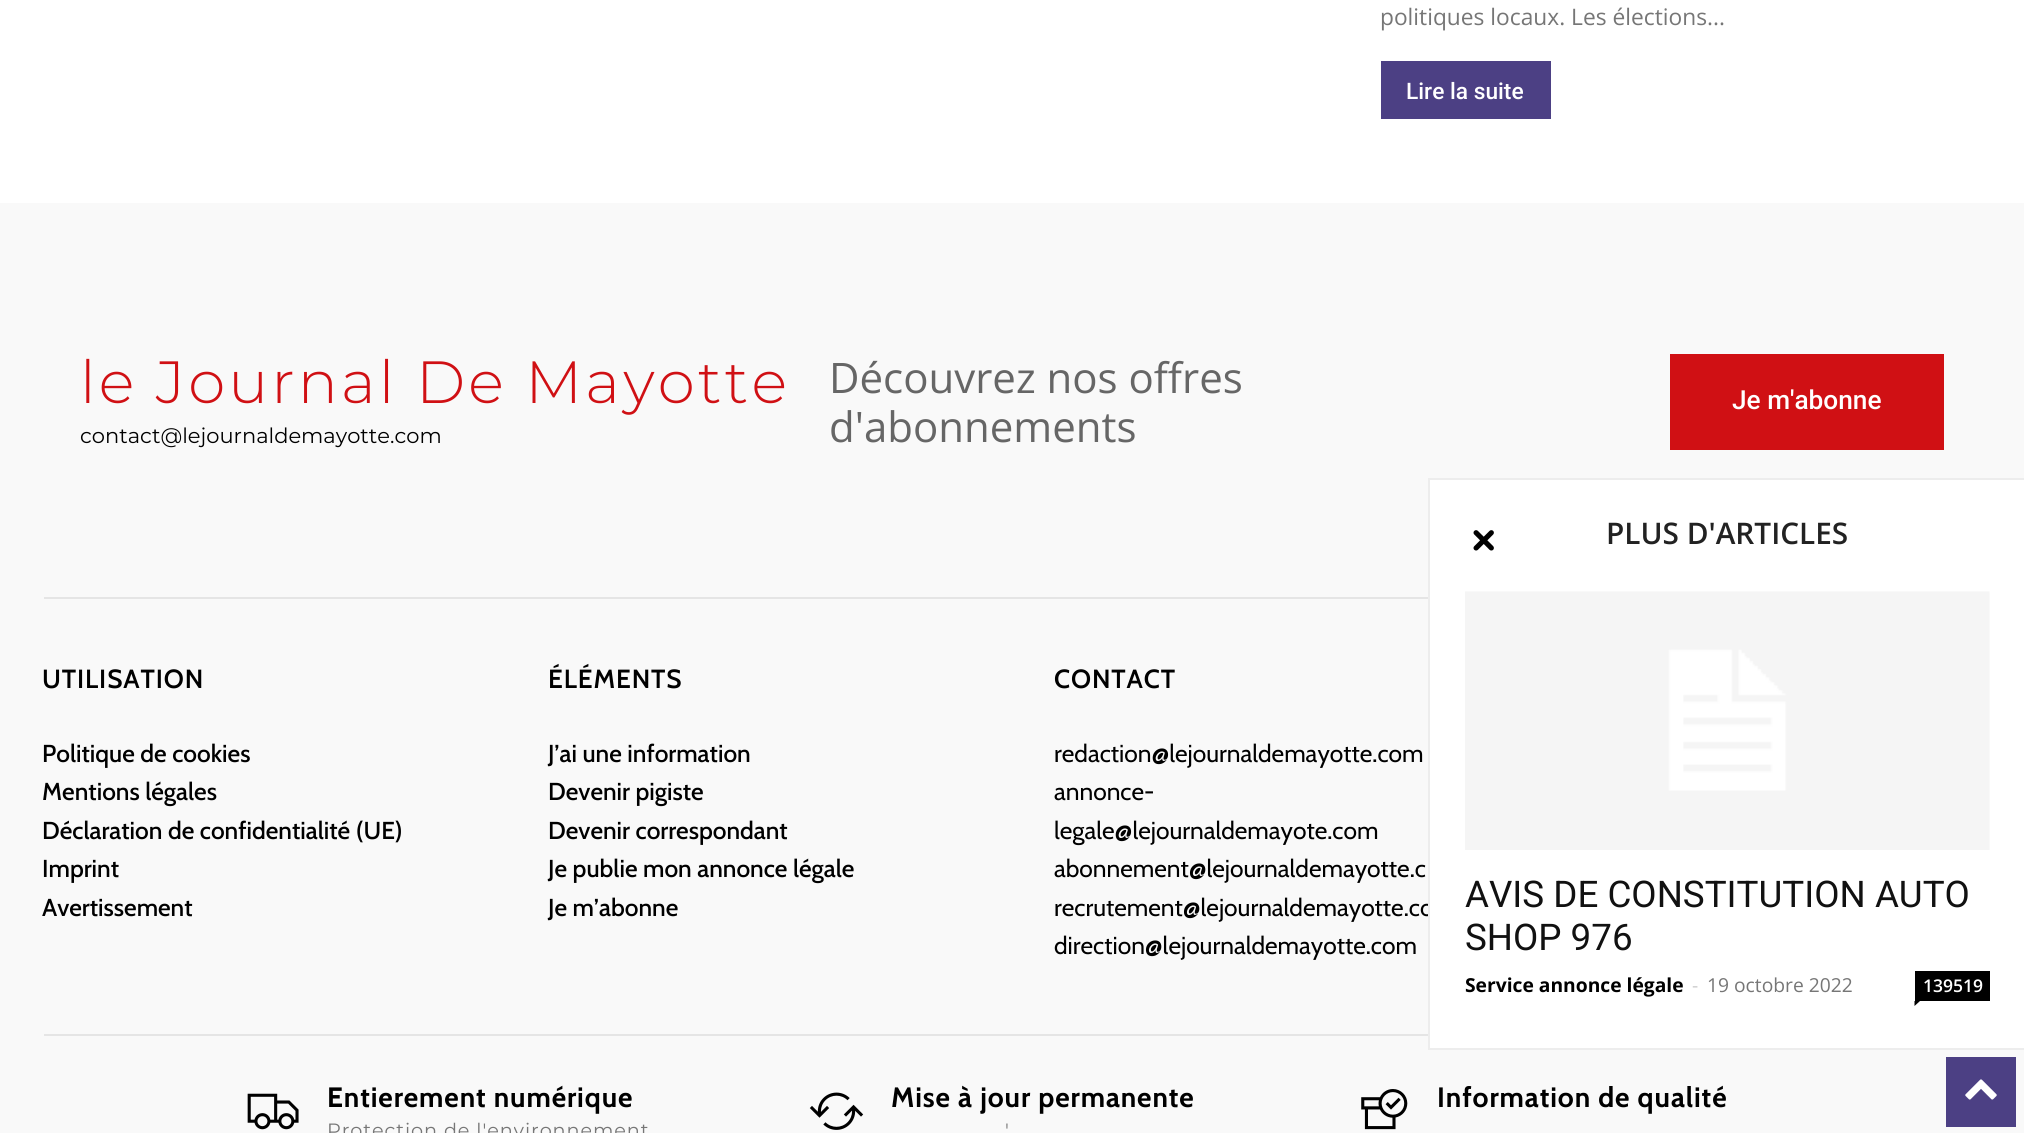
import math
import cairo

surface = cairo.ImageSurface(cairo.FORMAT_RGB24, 2024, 1133)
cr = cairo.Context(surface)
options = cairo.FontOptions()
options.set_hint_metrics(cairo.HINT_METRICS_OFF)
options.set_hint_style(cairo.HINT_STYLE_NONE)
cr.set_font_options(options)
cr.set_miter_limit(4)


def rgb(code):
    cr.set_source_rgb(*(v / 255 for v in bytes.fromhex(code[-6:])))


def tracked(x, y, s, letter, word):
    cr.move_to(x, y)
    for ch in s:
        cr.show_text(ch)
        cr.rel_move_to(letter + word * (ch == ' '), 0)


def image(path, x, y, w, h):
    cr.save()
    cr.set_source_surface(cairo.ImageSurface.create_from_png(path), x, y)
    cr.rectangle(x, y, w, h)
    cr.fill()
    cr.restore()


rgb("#ffffff")
cr.paint()
for x, y, w, h, color in [
    (1381, 61, 170, 58, "#4c4084"),
    (0, 203, 2024, 930, "#f9f9f9"),
    (1670, 354, 274, 96, "#d01014"),
    (44, 597, 1384, 2, "#e5e5e5"),
    (44, 1034, 1384, 2, "#e5e5e5"),
]:
    rgb(color)
    cr.rectangle(x, y, w, h)
    cr.fill()
image("img/1.png", 247, 1093, 52, 37)
image("img/2.png", 809, 1092, 55, 38)
image("img/3.png", 1361, 1089, 47, 41)
for x, y, w, h, color in [
    (1428, 478, 596, 2, "#ededed"),
    (1428, 1048, 596, 2, "#ededed"),
    (1946, 1057, 70, 70, "#4c4084"),
]:
    rgb(color)
    cr.rectangle(x, y, w, h)
    cr.fill()
image("img/6.png", 1965, 1079, 32, 21)
cr.select_font_face("Open Sans")
cr.set_font_size(22.75)
rgb("#767676")
cr.move_to(1380, 25)
cr.show_text("politiques locaux. Les élections...")
cr.select_font_face("Roboto Medium")
rgb("#ffffff")
cr.move_to(1406, 99)
cr.show_text("Lire la suite")
cr.select_font_face("Montserrat Light")
cr.set_font_size(59.5)
rgb("#d01014")
tracked(80, 403, "le Journal De Mayotte", 3.15, 0)
cr.select_font_face("Montserrat")
cr.set_font_size(21)
rgb("#000000")
cr.move_to(80, 443)
cr.show_text("contact@lejournaldemayotte.com")
cr.select_font_face("Open Sans")
cr.set_font_size(42)
rgb("#666666")
cr.move_to(829, 393)
cr.show_text("Découvrez nos offres")
cr.move_to(829, 442)
cr.show_text("d'abonnements")
cr.select_font_face("Roboto Medium")
cr.set_font_size(26.25)
rgb("#ffffff")
cr.move_to(1732, 409)
cr.show_text("Je m'abonne")
cr.select_font_face("Cabin SemiBold")
rgb("#000000")
tracked(42, 688, "UTILISATION", 0.9, 0)
cr.select_font_face("Cabin Medium")
cr.set_font_size(24.5)
for x, y, s in [
    (42, 762, "Politique de cookies"),
    (42, 800, "Mentions légales"),
    (42, 839, "Déclaration de confidentialité (UE)"),
    (42, 877, "Imprint"),
    (42, 916, "Avertissement"),
]:
    cr.move_to(x, y)
    cr.show_text(s)
cr.select_font_face("Cabin SemiBold")
cr.set_font_size(26.25)
tracked(548, 688, "ÉLÉMENTS", 0.9, 0)
cr.select_font_face("Cabin Medium")
cr.set_font_size(24.5)
for x, y, s in [
    (548, 762, "J’ai une information"),
    (548, 800, "Devenir pigiste"),
    (548, 839, "Devenir correspondant"),
    (548, 877, "Je publie mon annonce légale"),
    (548, 916, "Je m’abonne"),
]:
    cr.move_to(x, y)
    cr.show_text(s)
cr.select_font_face("Cabin SemiBold")
cr.set_font_size(26.25)
tracked(1054, 688, "CONTACT", 0.9, 0)
cr.select_font_face("Cabin")
cr.set_font_size(24.5)
for x, y, s in [
    (1054, 762, "redaction@lejournaldemayotte.com"),
    (1054, 800, "annonce-"),
    (1054, 839, "legale@lejournaldemayote.com"),
    (1054, 877, "abonnement@lejournaldemayotte.c"),
    (1054, 916, "recrutement@lejournaldemayotte.co"),
    (1054, 954, "direction@lejournaldemayotte.com"),
]:
    cr.move_to(x, y)
    cr.show_text(s)
cr.select_font_face("Cabin", cairo.FONT_SLANT_NORMAL, cairo.FONT_WEIGHT_BOLD)
cr.set_font_size(28)
tracked(327, 1107, "Entierement numérique", 0.9, 0)
cr.select_font_face("Montserrat")
cr.set_font_size(19.25)
rgb("#767676")
tracked(327, 1137, "Protection de l'environnement", 0.9, 0)
cr.select_font_face("Cabin", cairo.FONT_SLANT_NORMAL, cairo.FONT_WEIGHT_BOLD)
cr.set_font_size(28)
rgb("#000000")
tracked(891, 1107, "Mise à jour permanente", 0.9, 0)
cr.select_font_face("Montserrat")
cr.set_font_size(19.25)
rgb("#767676")
tracked(1005, 1137, "'", 0.9, 0)
cr.select_font_face("Cabin", cairo.FONT_SLANT_NORMAL, cairo.FONT_WEIGHT_BOLD)
cr.set_font_size(28)
rgb("#000000")
tracked(1437, 1107, "Information de qualité", 0.9, 0)
rgb("#ffffff")
cr.rectangle(1430, 480, 594, 568)
cr.fill()
rgb("#ededed")
cr.rectangle(1428, 478, 2, 572)
cr.fill()
image("img/4.png", 1473, 530, 21, 21)
cr.select_font_face("Open Sans SemiBold")
cr.set_font_size(29.75)
rgb("#222222")
cr.move_to(1606, 544)
cr.show_text("PLUS D'ARTICLES")
image("img/5.png", 1465, 591, 525, 259)
cr.select_font_face("Roboto")
cr.set_font_size(36.75)
rgb("#111111")
cr.move_to(1465, 907)
cr.show_text("AVIS DE CONSTITUTION AUTO")
cr.move_to(1465, 950)
cr.show_text("SHOP 976")
cr.select_font_face("Open Sans", cairo.FONT_SLANT_NORMAL, cairo.FONT_WEIGHT_BOLD)
cr.set_font_size(19.25)
rgb("#000000")
cr.move_to(1465, 992)
cr.show_text("Service annonce légale")
cr.select_font_face("Open Sans")
rgb("#cccccc")
cr.move_to(1692, 992)
cr.show_text("-")
rgb("#767676")
cr.move_to(1707, 992)
cr.show_text("19 octobre 2022")
rgb("#000000")
cr.rectangle(1915, 971, 75, 30)
cr.fill()
cr.select_font_face("Open Sans SemiBold")
cr.set_font_size(17.5)
rgb("#ffffff")
cr.move_to(1923, 992)
cr.show_text("139519")
rgb("#000000")
cr.new_path()
cr.move_to(1914.5, 1001)
cr.line_to(1920, 1001)
cr.line_to(1914.5, 1006)
cr.close_path()
cr.fill()
surface.write_to_png("page.png")
